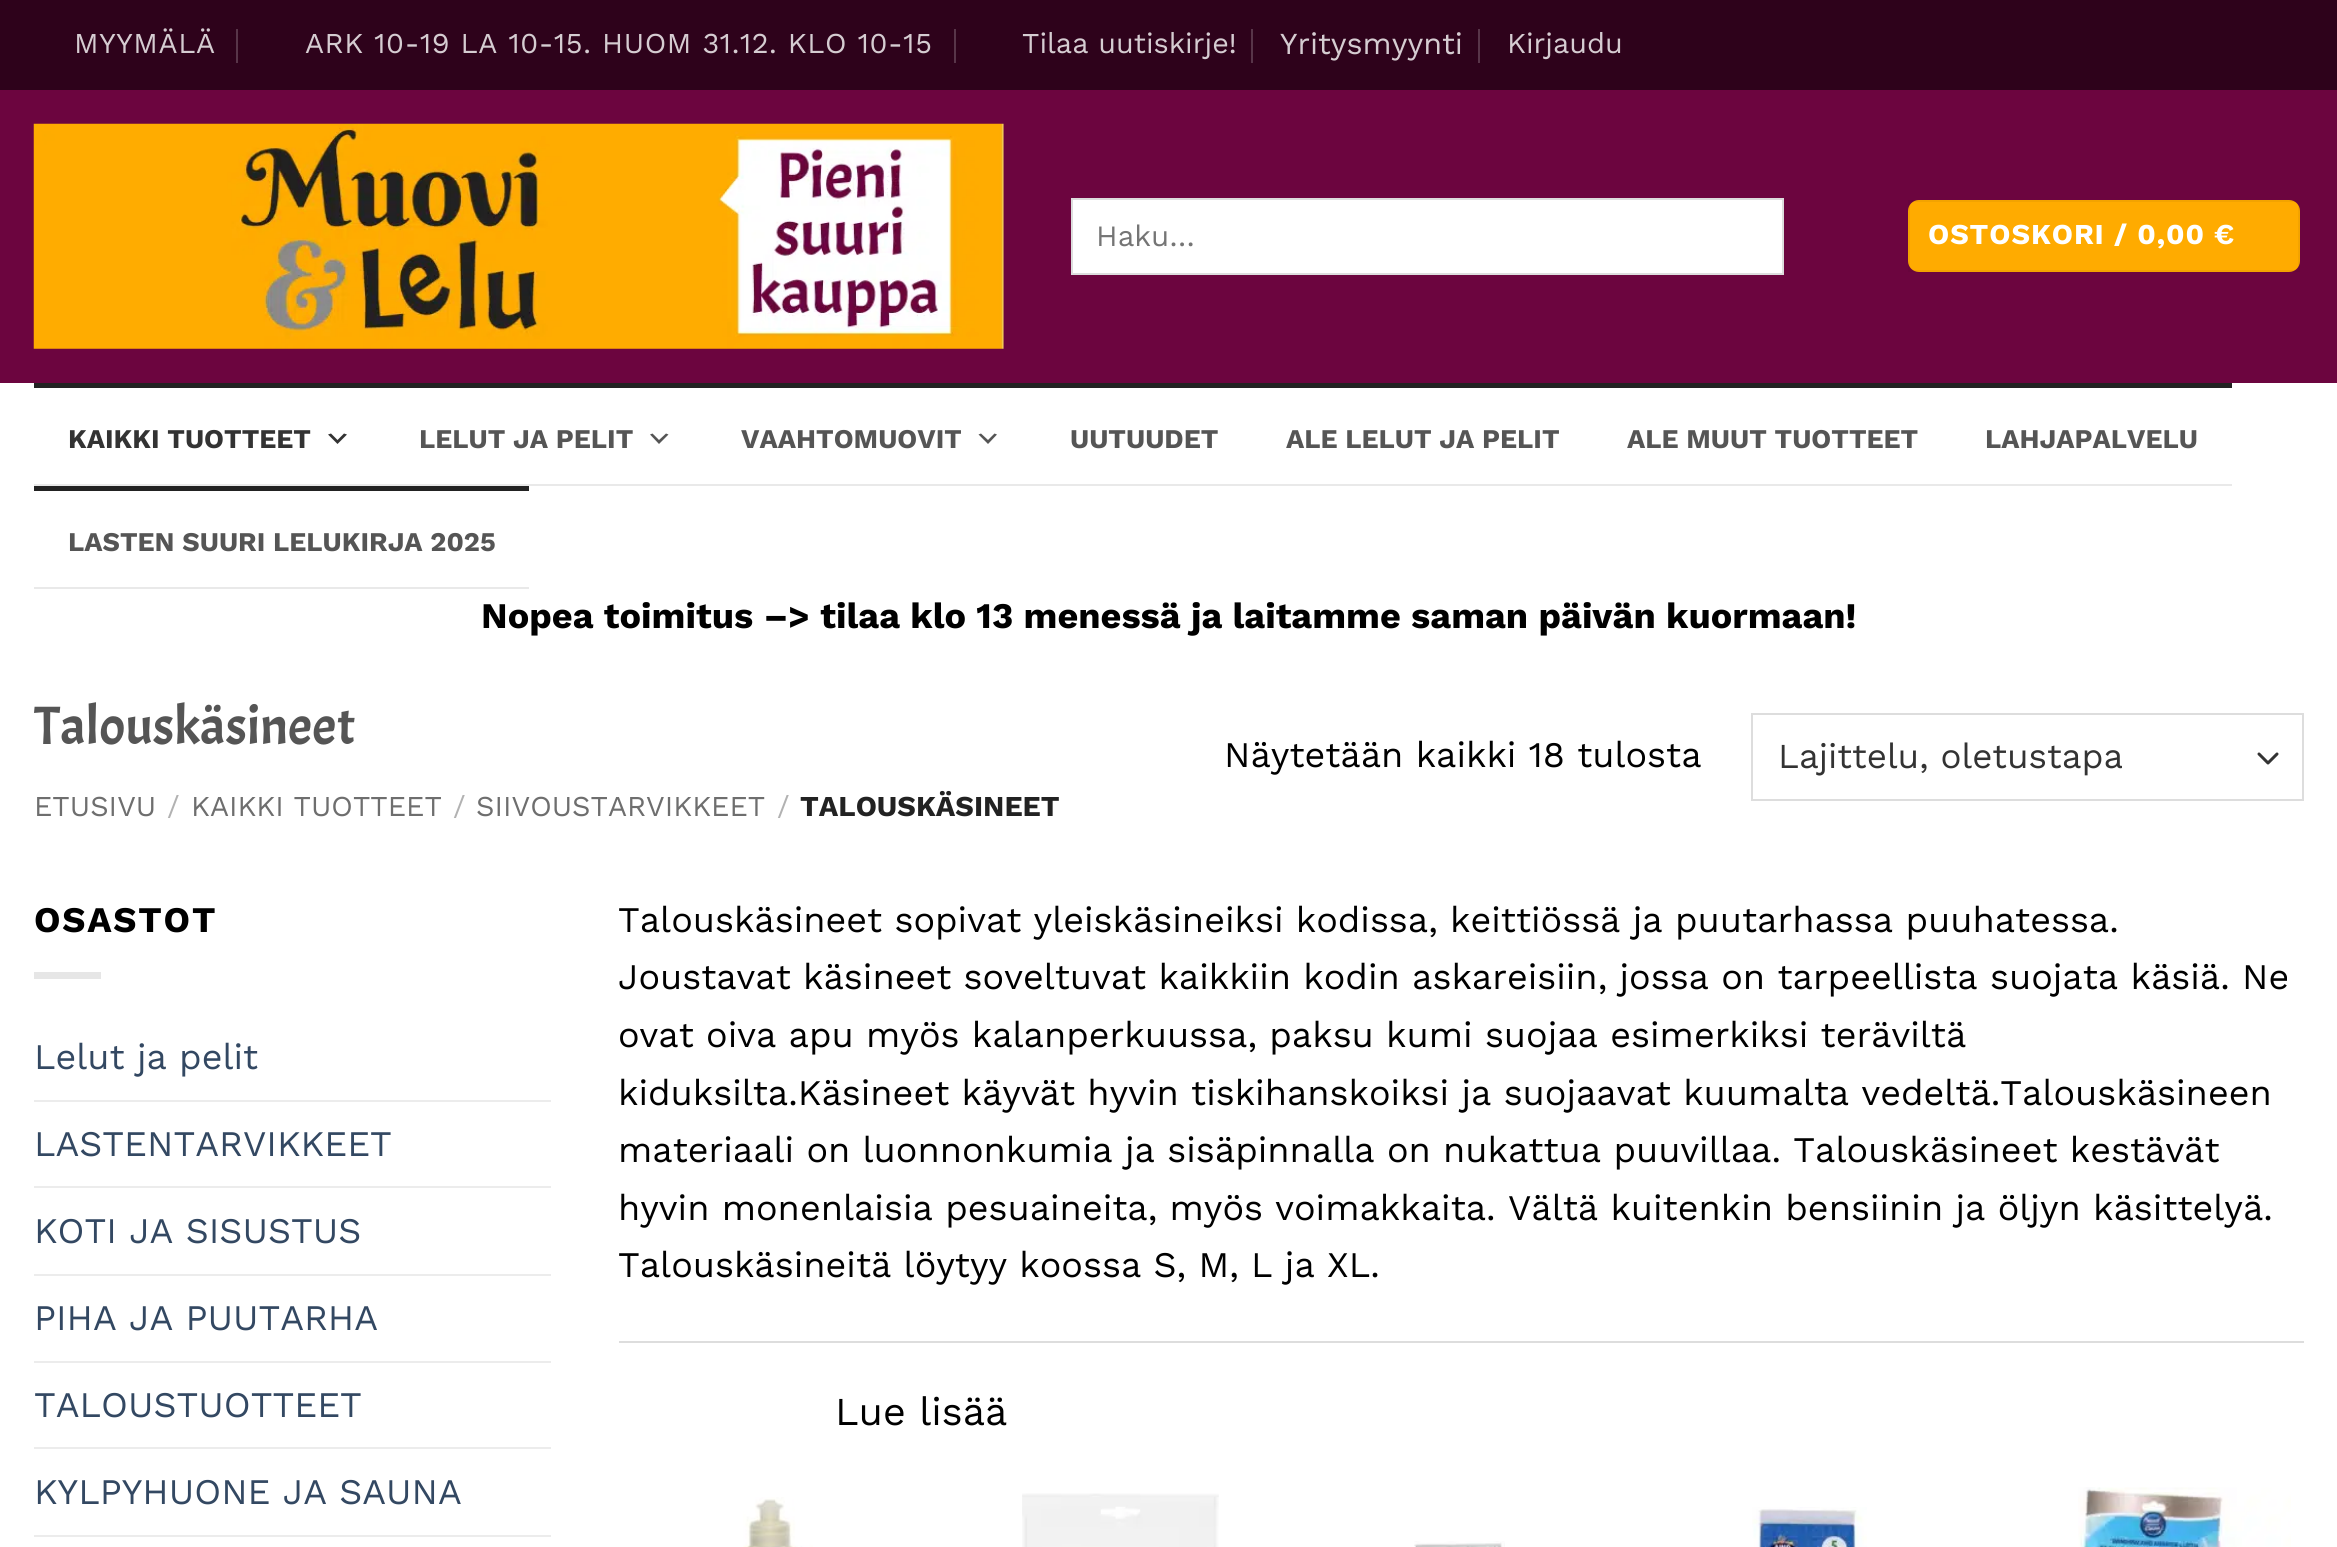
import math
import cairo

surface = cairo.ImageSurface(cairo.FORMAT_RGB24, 2337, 1547)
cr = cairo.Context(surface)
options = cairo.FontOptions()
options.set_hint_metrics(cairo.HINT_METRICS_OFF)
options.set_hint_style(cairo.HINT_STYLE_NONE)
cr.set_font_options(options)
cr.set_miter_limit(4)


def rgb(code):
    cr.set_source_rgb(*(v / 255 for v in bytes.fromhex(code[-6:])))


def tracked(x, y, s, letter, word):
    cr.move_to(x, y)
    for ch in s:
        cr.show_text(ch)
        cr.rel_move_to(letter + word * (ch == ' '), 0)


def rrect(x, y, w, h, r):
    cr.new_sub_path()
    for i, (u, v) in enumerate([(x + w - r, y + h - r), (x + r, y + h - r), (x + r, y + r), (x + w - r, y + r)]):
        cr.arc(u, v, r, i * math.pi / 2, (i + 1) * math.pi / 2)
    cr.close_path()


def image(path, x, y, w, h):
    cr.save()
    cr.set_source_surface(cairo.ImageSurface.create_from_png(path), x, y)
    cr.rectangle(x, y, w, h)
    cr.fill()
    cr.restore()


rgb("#ffffff")
cr.paint()
for x, y, w, h, color in [
    (0, 0, 2337, 90, "#2e021b"),
    (236, 29, 2, 34, "#583549"),
    (954, 29, 2, 34, "#583549"),
    (1251, 29, 2, 34, "#583549"),
    (1478, 29, 2, 34, "#583549"),
    (0, 90, 2337, 293, "#6c053f"),
]:
    rgb(color)
    cr.rectangle(x, y, w, h)
    cr.fill()
image("img/1.png", 33, 123, 971, 226)
rgb("#ffffff")
cr.rectangle(1072, 199, 711, 75)
cr.fill_preserve()
rgb("#dddddd")
cr.stroke()
rgb("#ffab00")
rrect(1908, 200, 392, 72, 11)
cr.fill()
cr.rectangle(1909, 201, 390, 70)
cr.set_source_rgba(0, 0, 0, 0.05)
cr.stroke()
rgb("#222222")
cr.rectangle(34, 383, 2198, 5)
cr.fill()
rgb("#e9e9e9")
cr.rectangle(34, 484, 2198, 2)
cr.fill()
rgb("#333333")
cr.new_path()
cr.move_to(331, 433.5)
cr.line_to(337.5, 440)
cr.line_to(344, 433.5)
cr.line_to(347, 434.5)
cr.line_to(337.5, 444)
cr.line_to(328, 434.5)
cr.close_path()
cr.fill()
rgb("#555555")
cr.new_path()
cr.move_to(652.5, 433.5)
cr.line_to(659, 440)
cr.line_to(666, 433.5)
cr.line_to(668.5, 434.5)
cr.line_to(659, 444)
cr.line_to(650, 434.5)
cr.close_path()
cr.fill()
cr.new_path()
cr.move_to(981, 433.5)
cr.line_to(988, 440)
cr.line_to(994.5, 433.5)
cr.line_to(997, 434.5)
cr.line_to(988, 444)
cr.line_to(978.5, 434.5)
cr.close_path()
cr.fill()
rgb("#222222")
cr.rectangle(34, 486, 495, 5)
cr.fill()
rgb("#e9e9e9")
cr.rectangle(34, 587, 495, 2)
cr.fill()
cr.new_path()
cr.move_to(2259, 754)
cr.line_to(2268, 763)
cr.line_to(2277, 754)
rgb("#333333")
cr.set_line_width(3)
cr.set_line_cap(cairo.LINE_CAP_ROUND)
cr.set_line_join(cairo.LINE_JOIN_ROUND)
cr.stroke()
cr.rectangle(1752, 714, 551, 86)
rgb("#dddddd")
cr.set_line_width(2)
cr.set_line_cap(cairo.LINE_CAP_BUTT)
cr.set_line_join(cairo.LINE_JOIN_MITER)
cr.stroke()
for x, y, w, h, color in [
    (34, 972, 67, 7, "#e6e6e6"),
    (34, 1100, 517, 2, "#ececec"),
    (34, 1186, 517, 2, "#ececec"),
    (34, 1274, 517, 2, "#ececec"),
    (34, 1361, 517, 2, "#ececec"),
    (34, 1447, 517, 2, "#ececec"),
    (34, 1535, 517, 2, "#ececec"),
    (619, 1341, 1685, 2, "#dddddd"),
]:
    rgb(color)
    cr.rectangle(x, y, w, h)
    cr.fill()
image("img/2.png", 743, 1497, 70, 50)
image("img/3.png", 1022, 1493, 197, 54)
image("img/4.png", 1414, 1541, 91, 6)
image("img/5.png", 1752, 1507, 115, 40)
image("img/6.png", 2078, 1487, 213, 60)
cr.select_font_face("Work Sans")
cr.set_font_size(28.8)
rgb("#d5ccd1")
tracked(74, 53, "MYYMÄLÄ", 0.6, 0)
tracked(305, 53, "ARK 10-19 LA 10-15. HUOM 31.12. KLO 10-15", 0.6, 0)
cr.move_to(1022, 53)
cr.show_text("Tilaa uutiskirje!")
cr.set_font_size(30.5)
cr.move_to(1280, 54)
cr.show_text("Yritysmyynti")
cr.set_font_size(28.8)
cr.move_to(1507, 53)
cr.show_text("Kirjaudu")
cr.set_font_size(29.5)
rgb("#757575")
cr.move_to(1096, 246)
cr.show_text("Haku…")
cr.select_font_face("Work Sans", cairo.FONT_SLANT_NORMAL, cairo.FONT_WEIGHT_BOLD)
cr.set_font_size(28.8)
rgb("#ffffff")
tracked(1928, 244, "OSTOSKORI / 0,00 €", 0.9, 0)
cr.set_font_size(27)
rgb("#333333")
cr.move_to(68, 448)
cr.show_text("KAIKKI TUOTTEET")
rgb("#555555")
for x, y, s in [
    (419, 448, "LELUT JA PELIT"),
    (741, 448, "VAAHTOMUOVIT"),
    (1070, 448, "UUTUUDET"),
    (1286, 448, "ALE LELUT JA PELIT"),
    (1627, 448, "ALE MUUT TUOTTEET"),
    (1985, 448, "LAHJAPALVELU"),
    (68, 551, "LASTEN SUURI LELUKIRJA 2025"),
]:
    cr.move_to(x, y)
    cr.show_text(s)
cr.set_font_size(36)
rgb("#000000")
cr.move_to(481, 628)
cr.show_text("Nopea toimitus –> tilaa klo 13 menessä ja laitamme saman päivän kuormaan!")
cr.select_font_face("Acme")
cr.set_font_size(54)
rgb("#555555")
cr.move_to(34, 744)
cr.show_text("Talouskäsineet")
cr.select_font_face("Work Sans")
cr.set_font_size(28.8)
rgb("#6e6e6e")
cr.move_to(34, 816)
cr.show_text("ETUSIVU")
rgb("#b2b2b2")
cr.move_to(167, 816)
cr.show_text("/")
rgb("#6e6e6e")
cr.move_to(191, 816)
cr.show_text("KAIKKI TUOTTEET")
rgb("#b2b2b2")
cr.move_to(453, 816)
cr.show_text("/")
rgb("#6e6e6e")
cr.move_to(476, 816)
cr.show_text("SIIVOUSTARVIKKEET")
rgb("#b2b2b2")
cr.move_to(777, 816)
cr.show_text("/")
cr.select_font_face("Work Sans", cairo.FONT_SLANT_NORMAL, cairo.FONT_WEIGHT_BOLD)
rgb("#222222")
cr.move_to(800, 816)
cr.show_text("TALOUSKÄSINEET")
cr.select_font_face("Work Sans")
cr.set_font_size(36)
rgb("#000000")
cr.move_to(1224, 767)
cr.show_text("Näytetään kaikki 18 tulosta")
cr.set_font_size(35)
rgb("#333333")
cr.move_to(1778, 768)
cr.show_text("Lajittelu, oletustapa")
cr.select_font_face("Work Sans", cairo.FONT_SLANT_NORMAL, cairo.FONT_WEIGHT_BOLD)
cr.set_font_size(36)
rgb("#000000")
tracked(34, 932, "OSASTOT", 1.75, 0)
cr.select_font_face("Work Sans")
rgb("#334862")
for x, y, s in [
    (34, 1069, "Lelut ja pelit"),
    (34, 1156, "LASTENTARVIKKEET"),
    (34, 1243, "KOTI JA SISUSTUS"),
    (34, 1330, "PIHA JA PUUTARHA"),
    (34, 1417, "TALOUSTUOTTEET"),
    (34, 1504, "KYLPYHUONE JA SAUNA"),
]:
    cr.move_to(x, y)
    cr.show_text(s)
rgb("#000000")
for x, y, s in [
    (618, 932, "Talouskäsineet sopivat yleiskäsineiksi kodissa, keittiössä ja puutarhassa puuhatessa."),
    (618, 989, "Joustavat käsineet soveltuvat kaikkiin kodin askareisiin, jossa on tarpeellista suojata käsiä. Ne"),
    (618, 1047, "ovat oiva apu myös kalanperkuussa, paksu kumi suojaa esimerkiksi teräviltä"),
    (618, 1105, "kiduksilta.Käsineet käyvät hyvin tiskihanskoiksi ja suojaavat kuumalta vedeltä.Talouskäsineen"),
    (618, 1162, "materiaali on luonnonkumia ja sisäpinnalla on nukattua puuvillaa. Talouskäsineet kestävät"),
    (618, 1220, "hyvin monenlaisia pesuaineita, myös voimakkaita. Vältä kuitenkin bensiinin ja öljyn käsittelyä."),
    (618, 1277, "Talouskäsineitä löytyy koossa S, M, L ja XL."),
]:
    cr.move_to(x, y)
    cr.show_text(s)
cr.set_font_size(39.5)
cr.move_to(835, 1425)
cr.show_text("Lue lisää")
surface.write_to_png("page.png")
